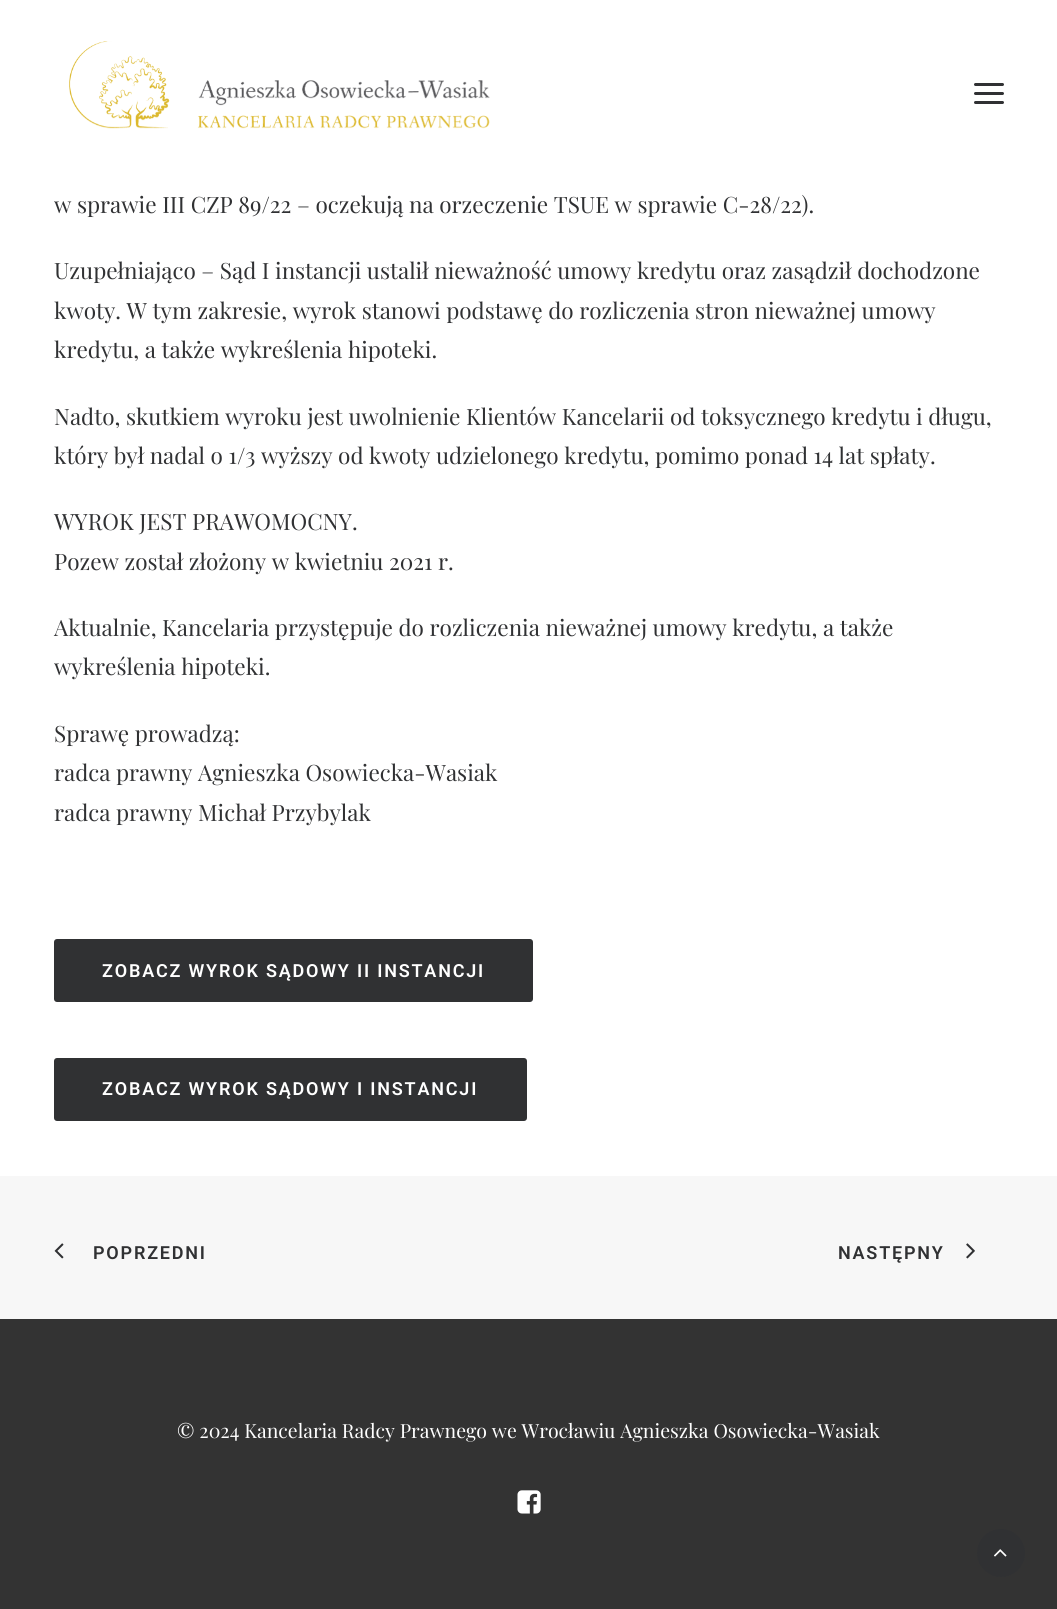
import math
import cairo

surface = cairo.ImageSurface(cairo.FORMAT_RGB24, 1057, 1609)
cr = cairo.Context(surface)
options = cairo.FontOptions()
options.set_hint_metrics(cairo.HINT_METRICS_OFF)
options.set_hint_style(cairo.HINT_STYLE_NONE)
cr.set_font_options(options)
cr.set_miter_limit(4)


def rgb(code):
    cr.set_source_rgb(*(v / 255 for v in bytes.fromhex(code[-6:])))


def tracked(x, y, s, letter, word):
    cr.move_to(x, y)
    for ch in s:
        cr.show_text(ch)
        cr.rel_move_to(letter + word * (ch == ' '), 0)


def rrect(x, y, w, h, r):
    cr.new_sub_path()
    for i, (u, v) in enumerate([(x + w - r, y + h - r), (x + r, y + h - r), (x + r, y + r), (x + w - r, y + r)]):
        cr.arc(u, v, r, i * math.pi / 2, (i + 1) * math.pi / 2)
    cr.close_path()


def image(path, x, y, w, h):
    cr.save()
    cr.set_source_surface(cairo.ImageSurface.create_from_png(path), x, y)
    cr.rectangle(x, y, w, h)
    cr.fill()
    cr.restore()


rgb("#ffffff")
cr.paint()
image("img/1.png", 69, 41, 421, 88)
rgb("#303133")
rrect(974, 92, 30, 3, 1.5)
cr.fill()
rrect(974, 83, 30, 3, 1.5)
cr.fill()
rrect(974, 101, 30, 3, 1.5)
cr.fill()
rrect(55, 940, 477, 61, 2)
cr.fill_preserve()
cr.stroke()
rrect(55, 1059, 471, 61, 2)
cr.fill_preserve()
cr.stroke()
rgb("#f7f7f7")
cr.rectangle(0, 1176, 1057, 143)
cr.fill()
image("img/2.png", 54, 1243, 10, 16)
image("img/3.png", 966, 1243, 9, 16)
rgb("#333333")
cr.rectangle(0, 1319, 1057, 290)
cr.fill()
image("img/4.png", 517, 1490, 24, 24)
rgb("#303133")
cr.arc(1001, 1553, 24, 0, 2 * math.pi)
cr.fill()
image("img/5.png", 994, 1549, 13, 8)
cr.select_font_face("Playfair Display")
cr.set_font_size(22.5)
for x, y, s in [
    (54, 213, "w sprawie III CZP 89/22 – oczekują na orzeczenie TSUE w sprawie C-28/22)."),
    (54, 279, "Uzupełniająco – Sąd I instancji ustalił nieważność umowy kredytu oraz zasądził dochodzone"),
    (54, 319, "kwoty. W tym zakresie, wyrok stanowi podstawę do rozliczenia stron nieważnej umowy"),
    (54, 358, "kredytu, a także wykreślenia hipoteki."),
    (54, 425, "Nadto, skutkiem wyroku jest uwolnienie Klientów Kancelarii od toksycznego kredytu i długu,"),
    (54, 464, "który był nadal o 1/3 wyższy od kwoty udzielonego kredytu, pomimo ponad 14 lat spłaty."),
    (54, 530, "WYROK JEST PRAWOMOCNY."),
    (54, 570, "Pozew został złożony w kwietniu 2021 r."),
    (54, 636, "Aktualnie, Kancelaria przystępuje do rozliczenia nieważnej umowy kredytu, a także"),
    (54, 675, "wykreślenia hipoteki."),
    (54, 742, "Sprawę prowadzą:"),
    (54, 781, "radca prawny Agnieszka Osowiecka-Wasiak"),
    (54, 821, "radca prawny Michał Przybylak"),
]:
    cr.move_to(x, y)
    cr.show_text(s)
cr.select_font_face("Roboto SemiBold")
cr.set_font_size(18)
rgb("#ffffff")
tracked(102, 977, "ZOBACZ WYROK SĄDOWY II INSTANCJI", 1.8, 0)
tracked(102, 1095, "ZOBACZ WYROK SĄDOWY I INSTANCJI", 1.8, 0)
rgb("#303133")
tracked(93, 1259, "POPRZEDNI", 1.8, 0)
tracked(838, 1259, "NASTĘPNY", 1.8, 0)
cr.select_font_face("Playfair Display")
cr.set_font_size(19.5)
rgb("#ffffff")
cr.move_to(177, 1438)
cr.show_text("© 2024 Kancelaria Radcy Prawnego we Wrocławiu Agnieszka Osowiecka-Wasiak")
surface.write_to_png("page.png")
